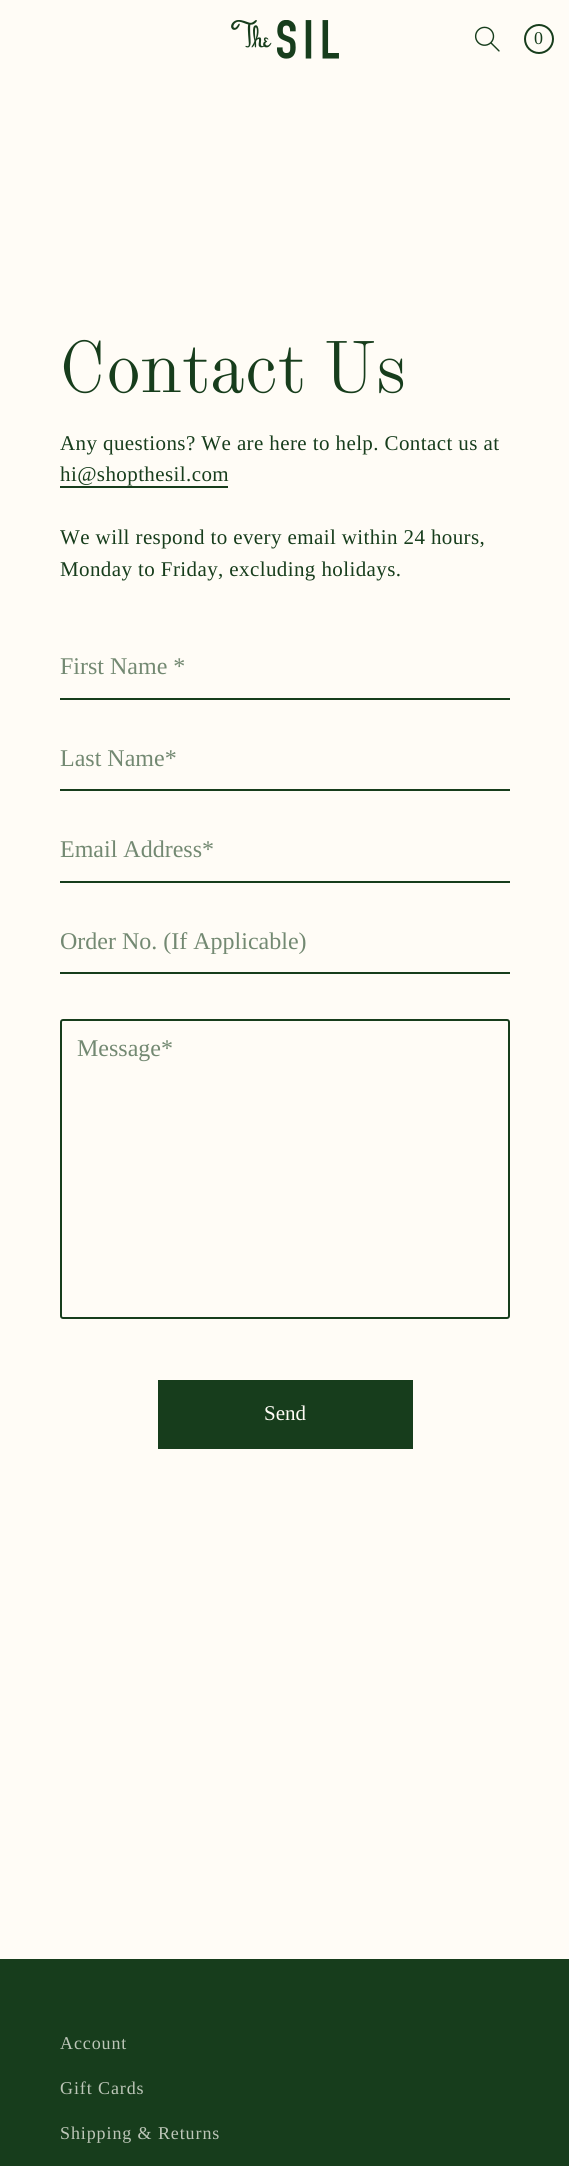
import math
import cairo

surface = cairo.ImageSurface(cairo.FORMAT_RGB24, 569, 2166)
cr = cairo.Context(surface)
options = cairo.FontOptions()
options.set_hint_metrics(cairo.HINT_METRICS_OFF)
options.set_hint_style(cairo.HINT_STYLE_NONE)
cr.set_font_options(options)
cr.set_miter_limit(4)


def rgb(code):
    cr.set_source_rgb(*(v / 255 for v in bytes.fromhex(code[-6:])))


def tracked(x, y, s, letter, word):
    cr.move_to(x, y)
    for ch in s:
        cr.show_text(ch)
        cr.rel_move_to(letter + word * (ch == ' '), 0)


def rrect(x, y, w, h, r):
    cr.new_sub_path()
    for i, (u, v) in enumerate([(x + w - r, y + h - r), (x + r, y + h - r), (x + r, y + r), (x + w - r, y + r)]):
        cr.arc(u, v, r, i * math.pi / 2, (i + 1) * math.pi / 2)
    cr.close_path()


def image(path, x, y, w, h):
    cr.save()
    cr.set_source_surface(cairo.ImageSurface.create_from_png(path), x, y)
    cr.rectangle(x, y, w, h)
    cr.fill()
    cr.restore()


rgb("#fffcf6")
cr.paint()
image("img/1.png", 231, 20, 108, 39)
image("img/2.png", 474, 26, 26, 26)
cr.arc(539, 39, 14, 0, 2 * math.pi)
rgb("#173d1c")
cr.stroke()
for x, y, w, h, color in [
    (60, 486, 168, 2, "#173d1c"),
    (60, 698, 450, 2, "#173d1c"),
    (60, 789, 450, 2, "#173d1c"),
    (60, 881, 450, 2, "#173d1c"),
    (60, 972, 450, 2, "#173d1c"),
]:
    rgb(color)
    cr.rectangle(x, y, w, h)
    cr.fill()
rrect(61, 1020, 448, 298, 2)
cr.stroke()
cr.rectangle(158, 1380, 255, 69)
cr.fill()
cr.rectangle(0, 1959, 569, 207)
cr.fill()
cr.select_font_face("Liberation Serif")
cr.set_font_size(18)
tracked(534, 44, "0", 0.9, 0)
cr.select_font_face("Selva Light")
cr.set_font_size(75)
cr.move_to(60, 392)
cr.show_text("Contact Us")
cr.select_font_face("Liberation Serif")
cr.set_font_size(21)
for x, y, s in [
    (60, 450, "Any questions? We are here to help. Contact us at"),
    (60, 481, "hi@shopthesil.com"),
    (60, 544, "We will respond to every email within 24 hours,"),
    (60, 576, "Monday to Friday, excluding holidays."),
]:
    tracked(x, y, s, 0.4, 0)
cr.set_font_size(24)
rgb("#738972")
for x, y, s in [
    (60, 674, "First Name *"),
    (60, 766, "Last Name*"),
    (60, 857, "Email Address*"),
]:
    cr.move_to(x, y)
    cr.show_text(s)
cr.save()
cr.rectangle(60, 927, 435, 27)
cr.clip()
cr.move_to(60, 949)
cr.show_text("Order No. (If Applicable)")
cr.restore()
cr.move_to(77, 1056)
cr.show_text("Message*")
cr.set_font_size(21)
rgb("#fffcf6")
cr.move_to(264, 1420)
cr.show_text("Send")
cr.set_font_size(18)
rgb("#bdc6b8")
for x, y, s in [
    (60, 2049, "Account"),
    (60, 2094, "Gift Cards"),
    (60, 2139, "Shipping & Returns"),
]:
    tracked(x, y, s, 0.9, 0)
surface.write_to_png("page.png")
